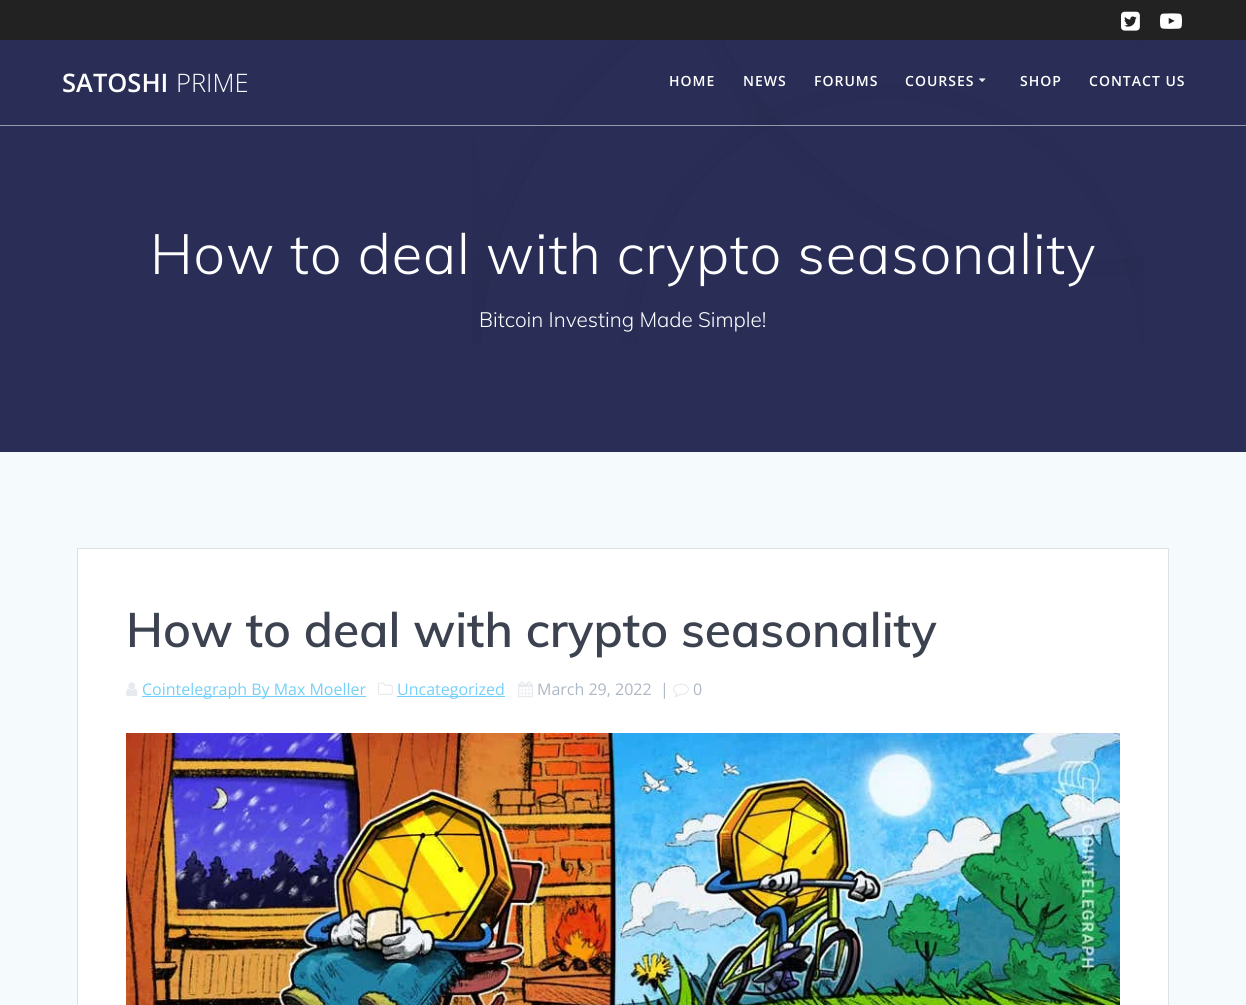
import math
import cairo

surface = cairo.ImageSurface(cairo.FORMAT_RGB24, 1246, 1005)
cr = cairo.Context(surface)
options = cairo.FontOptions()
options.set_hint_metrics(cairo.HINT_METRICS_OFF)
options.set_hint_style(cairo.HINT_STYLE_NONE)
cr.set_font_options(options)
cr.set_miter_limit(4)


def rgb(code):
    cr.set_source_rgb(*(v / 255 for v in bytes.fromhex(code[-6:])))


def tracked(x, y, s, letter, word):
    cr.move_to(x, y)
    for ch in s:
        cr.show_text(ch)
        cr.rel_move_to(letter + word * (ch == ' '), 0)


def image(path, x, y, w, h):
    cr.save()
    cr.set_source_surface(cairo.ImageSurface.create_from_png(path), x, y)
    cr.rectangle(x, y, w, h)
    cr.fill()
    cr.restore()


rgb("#2a2e57")
cr.paint()
rgb("#222222")
cr.rectangle(0, 0, 1246, 40)
cr.fill()
image("img/1.png", 1121, 11, 19, 20)
image("img/2.png", 1160, 13, 22, 16)
image("img/4.png", 472, 40, 672, 305)
cr.set_source_rgba(1, 1, 1, 0.5)
cr.rectangle(0, 125, 1246, 1)
cr.fill()
image("img/3.png", 979, 78, 7, 4)
rgb("#f5fafd")
cr.rectangle(0, 452, 1246, 553)
cr.fill()
rgb("#ffffff")
cr.rectangle(77.5, 548.5, 1091, 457)
cr.fill_preserve()
rgb("#e0e1e1")
cr.set_line_width(1)
cr.stroke()
image("img/5.png", 126, 682, 12, 14)
rgb("#74d0f9")
cr.rectangle(142, 696, 224, 1)
cr.fill()
image("img/6.png", 378, 682, 15, 13)
cr.rectangle(397, 696, 108, 1)
cr.fill()
image("img/7.png", 518, 681, 15, 17)
image("img/8.png", 673, 683, 16, 15)
image("img/9.png", 126, 733, 994, 272)
cr.select_font_face("Open Sans SemiBold")
cr.set_font_size(25.5)
rgb("#ffffff")
cr.move_to(62, 92)
cr.show_text("SATOSHI")
cr.select_font_face("Open Sans Light")
cr.move_to(176, 92)
cr.show_text("PRIME")
cr.select_font_face("Open Sans SemiBold")
cr.set_font_size(14)
for x, y, s in [
    (669, 86, "HOME"),
    (743, 86, "NEWS"),
    (814, 86, "FORUMS"),
    (905, 86, "COURSES"),
    (1020, 86, "SHOP"),
    (1089, 86, "CONTACT US"),
]:
    tracked(x, y, s, 1, 0)
cr.select_font_face("Muli Light")
cr.set_font_size(56)
tracked(150, 274, "How to deal with crypto seasonality", 0.9, 0)
cr.set_font_size(20.75)
cr.move_to(479, 327)
cr.show_text("Bitcoin Investing Made Simple!")
cr.select_font_face("Muli SemiBold")
cr.set_font_size(48)
rgb("#3c424f")
cr.move_to(126, 647)
cr.show_text("How to deal with crypto seasonality")
cr.select_font_face("Open Sans")
cr.set_font_size(16)
rgb("#74d0f9")
cr.move_to(142, 695)
cr.show_text("Cointelegraph By Max Moeller")
cr.move_to(397, 695)
cr.show_text("Uncategorized")
rgb("#aeb7c4")
for x, y, s in [
    (537, 695, "March 29, 2022"),
    (660, 695, "|"),
    (693, 695, "0"),
]:
    cr.move_to(x, y)
    cr.show_text(s)
surface.write_to_png("page.png")
